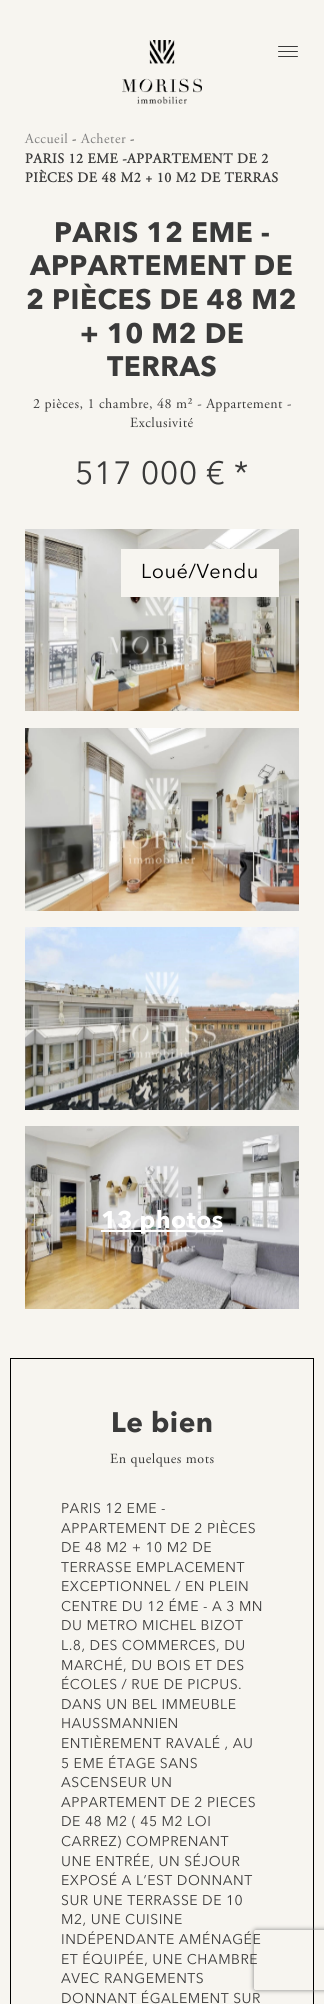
import math
import cairo

surface = cairo.ImageSurface(cairo.FORMAT_RGB24, 324, 2004)
cr = cairo.Context(surface)
options = cairo.FontOptions()
options.set_hint_metrics(cairo.HINT_METRICS_OFF)
options.set_hint_style(cairo.HINT_STYLE_NONE)
cr.set_font_options(options)
cr.set_miter_limit(4)


def rgb(code):
    cr.set_source_rgb(*(v / 255 for v in bytes.fromhex(code[-6:])))


def tracked(x, y, s, letter, word):
    cr.move_to(x, y)
    for ch in s:
        cr.show_text(ch)
        cr.rel_move_to(letter + word * (ch == ' '), 0)


def rrect(x, y, w, h, r):
    cr.new_sub_path()
    for i, (u, v) in enumerate([(x + w - r, y + h - r), (x + r, y + h - r), (x + r, y + r), (x + w - r, y + r)]):
        cr.arc(u, v, r, i * math.pi / 2, (i + 1) * math.pi / 2)
    cr.close_path()


def soft_shadow(x, y, w, h, r, blur, alpha):
    cr.push_group_with_content(cairo.CONTENT_ALPHA)
    cr.set_operator(cairo.OPERATOR_SOURCE)
    for i in range(15, -16, -2):
        e = blur * i / 6
        if min(w, h) + 2 * e > 0:
            cr.set_source_rgba(0, 0, 0, alpha * math.erfc((i - 1) / 8.5) / 2)
            rrect(x - e, y - e, w + 2 * e, h + 2 * e, max(0, min(r + e + blur * .6, min(w, h) / 2 + e)))
            cr.fill()
    cr.mask(cr.pop_group())


def image(path, x, y, w, h):
    cr.save()
    cr.set_source_surface(cairo.ImageSurface.create_from_png(path), x, y)
    cr.rectangle(x, y, w, h)
    cr.fill()
    cr.restore()


rgb("#f7f5f0")
cr.paint()
image("img/1.png", 122, 40, 80, 64)
rgb("#3a3a3a")
rrect(278, 46, 20, 1, 0.5)
cr.fill()
rrect(278, 51, 20, 1, 0.5)
cr.fill()
rrect(278, 56, 20, 1, 0.5)
cr.fill()
image("img/2.png", 25, 529, 274, 182)
rgb("#f7f5f0")
cr.rectangle(121, 549, 158, 48)
cr.fill()
image("img/3.png", 25, 728, 274, 183)
image("img/4.png", 25, 927, 274, 183)
image("img/5.png", 25, 1126, 274, 183)
rgb("#ffffff")
cr.rectangle(101, 1230, 122, 2)
cr.fill()
cr.rectangle(10.5, 1358.5, 303, 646)
rgb("#000000")
cr.set_line_width(1)
cr.stroke()
cr.save()
cr.set_fill_rule(cairo.FILL_RULE_EVEN_ODD)
cr.new_path()
cr.move_to(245, 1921)
cr.line_to(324, 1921)
cr.line_to(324, 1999)
cr.line_to(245, 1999)
cr.close_path()
cr.move_to(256, 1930)
cr.line_to(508, 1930)
cr.curve_to(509, 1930, 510, 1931, 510, 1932)
cr.line_to(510, 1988)
cr.curve_to(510, 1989, 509, 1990, 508, 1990)
cr.line_to(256, 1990)
cr.curve_to(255, 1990, 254, 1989, 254, 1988)
cr.line_to(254, 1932)
cr.curve_to(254, 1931, 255, 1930, 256, 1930)
cr.close_path()
cr.clip()
rgb("#808080")
soft_shadow(254, 1930, 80, 60, 2, 2.5, 1)
cr.restore()
cr.select_font_face("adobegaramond")
cr.set_font_size(14)
rgb("#7e7e7e")
tracked(25, 143, "Accueil", 0.5, 0)
rgb("#3a3a3a")
tracked(72, 143, "-", 0.5, 0)
rgb("#7e7e7e")
tracked(81, 143, "Acheter", 0.5, 0)
rgb("#3a3a3a")
tracked(130, 143, "-", 0.5, 0)
cr.select_font_face("adobegaramond", cairo.FONT_SLANT_NORMAL, cairo.FONT_WEIGHT_BOLD)
tracked(25, 163, "PARIS 12 EME -APPARTEMENT DE 2", 0.5, 0)
tracked(25, 182, "PIÈCES DE 48 M2 + 10 M2 DE TERRAS", 0.5, 0)
cr.select_font_face("Avenir Next", cairo.FONT_SLANT_NORMAL, cairo.FONT_WEIGHT_BOLD)
cr.set_font_size(28)
for x, y, s in [
    (54, 242, "PARIS 12 EME -"),
    (30, 275, "APPARTEMENT DE"),
    (26, 309, "2 PIÈCES DE 48 M2"),
    (80, 343, "+ 10 M2 DE"),
    (107, 376, "TERRAS"),
]:
    tracked(x, y, s, 0.5, 0)
cr.select_font_face("adobegaramond")
cr.set_font_size(14)
tracked(33, 408, "2 pièces, 1 chambre, 48 m² - Appartement -", 0.5, 0)
tracked(130, 427, "Exclusivité", 0.5, 0)
cr.select_font_face("Avenir Next")
cr.set_font_size(32)
tracked(75, 484, "517 000 € *", 0.5, 0)
cr.set_font_size(20)
rgb("#000000")
tracked(141, 578, "Loué/Vendu", 0.5, 0)
cr.select_font_face("Avenir Next", cairo.FONT_SLANT_NORMAL, cairo.FONT_WEIGHT_BOLD)
cr.set_font_size(24)
rgb("#ffffff")
tracked(101, 1228, "13 photos", 0.5, 0)
cr.set_font_size(28)
rgb("#3a3a3a")
tracked(111, 1432, "Le bien", 0.5, 0)
cr.select_font_face("adobegaramond")
cr.set_font_size(14)
tracked(110, 1463, "En quelques mots", 0.5, 0)
cr.select_font_face("Avenir Next")
for x, y, s in [
    (61, 1513, "PARIS 12 EME -"),
    (61, 1533, "APPARTEMENT DE 2 PIÈCES"),
    (61, 1552, "DE 48 M2 + 10 M2 DE"),
    (61, 1572, "TERRASSE EMPLACEMENT"),
    (61, 1591, "EXCEPTIONNEL / EN PLEIN"),
    (61, 1611, "CENTRE DU 12 ÉME - A 3 MN"),
    (61, 1630, "DU METRO MICHEL BIZOT"),
    (61, 1650, "L.8, DES COMMERCES, DU"),
    (61, 1670, "MARCHÉ, DU BOIS ET DES"),
    (61, 1689, "ÉCOLES / RUE DE PICPUS."),
    (61, 1709, "DANS UN BEL IMMEUBLE"),
    (61, 1728, "HAUSSMANNIEN"),
    (61, 1748, "ENTIÈREMENT RAVALÉ , AU"),
    (61, 1768, "5 EME ÉTAGE SANS"),
    (61, 1787, "ASCENSEUR UN"),
    (61, 1807, "APPARTEMENT DE 2 PIECES"),
    (61, 1826, "DE 48 M2 ( 45 M2 LOI"),
    (61, 1846, "CARREZ) COMPRENANT"),
    (61, 1866, "UNE ENTRÉE, UN SÉJOUR"),
    (61, 1885, "EXPOSÉ A L’EST DONNANT"),
    (61, 1905, "SUR UNE TERRASSE DE 10"),
    (61, 1924, "M2, UNE CUISINE"),
    (61, 1944, "INDÉPENDANTE AMÉNAGÉE"),
    (61, 1964, "ET ÉQUIPÉE, UNE CHAMBRE"),
    (61, 1983, "AVEC RANGEMENTS"),
    (61, 2003, "DONNANT ÉGALEMENT SUR"),
]:
    tracked(x, y, s, 0.5, 0)
surface.write_to_png("page.png")
